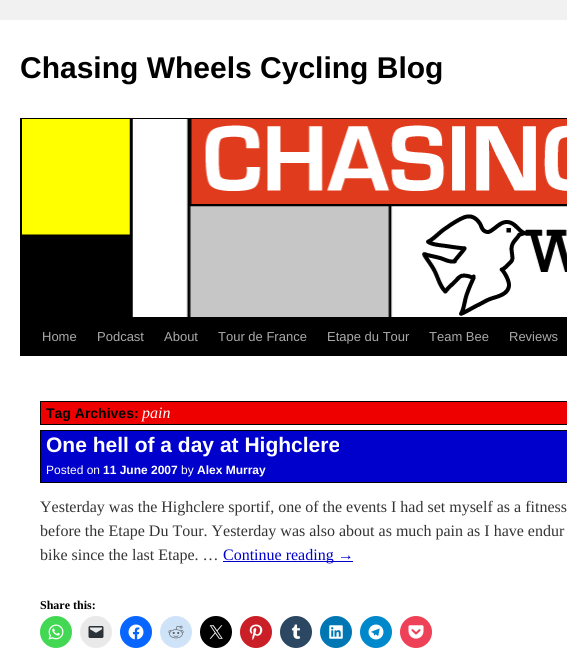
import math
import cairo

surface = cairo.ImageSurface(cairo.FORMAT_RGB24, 567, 650)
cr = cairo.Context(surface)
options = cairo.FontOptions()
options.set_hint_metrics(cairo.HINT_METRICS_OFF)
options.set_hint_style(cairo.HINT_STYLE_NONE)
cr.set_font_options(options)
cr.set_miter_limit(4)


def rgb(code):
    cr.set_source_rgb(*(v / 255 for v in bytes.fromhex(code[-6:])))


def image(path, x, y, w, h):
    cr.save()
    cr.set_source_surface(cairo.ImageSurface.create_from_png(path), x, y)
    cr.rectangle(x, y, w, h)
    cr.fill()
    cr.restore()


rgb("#f1f1f1")
cr.paint()
for x, y, w, h, color in [
    (0, 20, 567, 630, "#ffffff"),
    (20, 118, 547, 1, "#000000"),
    (20, 317, 547, 39, "#000000"),
]:
    rgb(color)
    cr.rectangle(x, y, w, h)
    cr.fill()
image("img/1.png", 20, 119, 547, 198)
rgb("#ee0000")
cr.rectangle(40.5, 401.5, 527, 23)
cr.fill_preserve()
rgb("#000000")
cr.set_line_width(1)
cr.stroke()
for x, y, w, h, color in [
    (41, 431, 526, 51, "#0000cc"),
    (40, 430, 527, 1, "#000000"),
    (40, 430, 1, 28, "#000000"),
    (40, 482, 527, 1, "#000000"),
    (40, 458, 1, 25, "#000000"),
    (223, 561, 130, 1, "#0000cd"),
]:
    rgb(color)
    cr.rectangle(x, y, w, h)
    cr.fill()
rgb("#43d854")
cr.arc(56, 632, 16, 0, 2 * math.pi)
cr.fill()
image("img/2.png", 48, 624, 16, 16)
rgb("#e9e9e9")
cr.arc(96, 632, 16, 0, 2 * math.pi)
cr.fill()
image("img/3.png", 88, 626, 16, 12)
rgb("#0866ff")
cr.arc(136, 632, 16, 0, 2 * math.pi)
cr.fill()
image("img/4.png", 128, 624, 16, 16)
rgb("#cee3f8")
cr.arc(176, 632, 16, 0, 2 * math.pi)
cr.fill()
image("img/5.png", 168, 625, 16, 14)
rgb("#000000")
cr.arc(216, 632, 16, 0, 2 * math.pi)
cr.fill()
image("img/6.png", 209, 625, 14, 14)
rgb("#ca1f27")
cr.arc(256, 632, 16, 0, 2 * math.pi)
cr.fill()
image("img/7.png", 249, 624, 14, 16)
rgb("#2c4762")
cr.arc(296, 632, 16, 0, 2 * math.pi)
cr.fill()
image("img/8.png", 291, 624, 10, 15)
rgb("#0077b5")
cr.arc(336, 632, 16, 0, 2 * math.pi)
cr.fill()
image("img/9.png", 329, 625, 14, 14)
rgb("#0088cc")
cr.arc(376, 632, 16, 0, 2 * math.pi)
cr.fill()
image("img/10.png", 368, 624, 16, 16)
rgb("#ee4056")
cr.arc(416, 632, 16, 0, 2 * math.pi)
cr.fill()
image("img/11.png", 408, 625, 16, 14)
cr.select_font_face("Liberation Sans", cairo.FONT_SLANT_NORMAL, cairo.FONT_WEIGHT_BOLD)
cr.set_font_size(30)
rgb("#000000")
cr.move_to(20, 78)
cr.show_text("Chasing Wheels Cycling Blog")
cr.select_font_face("Liberation Sans")
cr.set_font_size(13)
rgb("#aaaaaa")
for x, y, s in [
    (42, 341, "Home"),
    (97, 341, "Podcast"),
    (164, 341, "About"),
    (218, 341, "Tour de France"),
    (327, 341, "Etape du Tour"),
    (429, 341, "Team Bee"),
    (509, 341, "Reviews"),
]:
    cr.move_to(x, y)
    cr.show_text(s)
cr.select_font_face("Liberation Sans", cairo.FONT_SLANT_NORMAL, cairo.FONT_WEIGHT_BOLD)
cr.set_font_size(14)
rgb("#000000")
cr.move_to(46, 418)
cr.show_text("Tag Archives:")
cr.select_font_face("Liberation Serif", cairo.FONT_SLANT_ITALIC)
cr.set_font_size(16)
rgb("#ffffff")
cr.move_to(142, 418)
cr.show_text("pain")
cr.select_font_face("Liberation Sans", cairo.FONT_SLANT_NORMAL, cairo.FONT_WEIGHT_BOLD)
cr.set_font_size(21)
cr.move_to(46, 452)
cr.show_text("One hell of a day at Highclere")
cr.select_font_face("Liberation Sans")
cr.set_font_size(12)
cr.move_to(46, 474)
cr.show_text("Posted on")
cr.select_font_face("Liberation Sans", cairo.FONT_SLANT_NORMAL, cairo.FONT_WEIGHT_BOLD)
cr.move_to(103, 474)
cr.show_text("11 June 2007")
cr.select_font_face("Liberation Sans")
cr.move_to(181, 474)
cr.show_text("by")
cr.select_font_face("Liberation Sans", cairo.FONT_SLANT_NORMAL, cairo.FONT_WEIGHT_BOLD)
cr.move_to(197, 474)
cr.show_text("Alex Murray")
cr.select_font_face("Liberation Serif")
cr.set_font_size(16)
rgb("#333333")
for x, y, s in [
    (40, 512, "Yesterday was the Highclere sportif, one of the events I had set myself as a fitness"),
    (40, 536, "before the Etape Du Tour. Yesterday was also about as much pain as I have endur"),
    (40, 560, "bike since the last Etape. …"),
]:
    cr.move_to(x, y)
    cr.show_text(s)
rgb("#0000cd")
cr.move_to(223, 560)
cr.show_text("Continue reading →")
cr.select_font_face("Liberation Serif", cairo.FONT_SLANT_NORMAL, cairo.FONT_WEIGHT_BOLD)
cr.set_font_size(12)
rgb("#000000")
cr.move_to(40, 609)
cr.show_text("Share this:")
surface.write_to_png("page.png")
